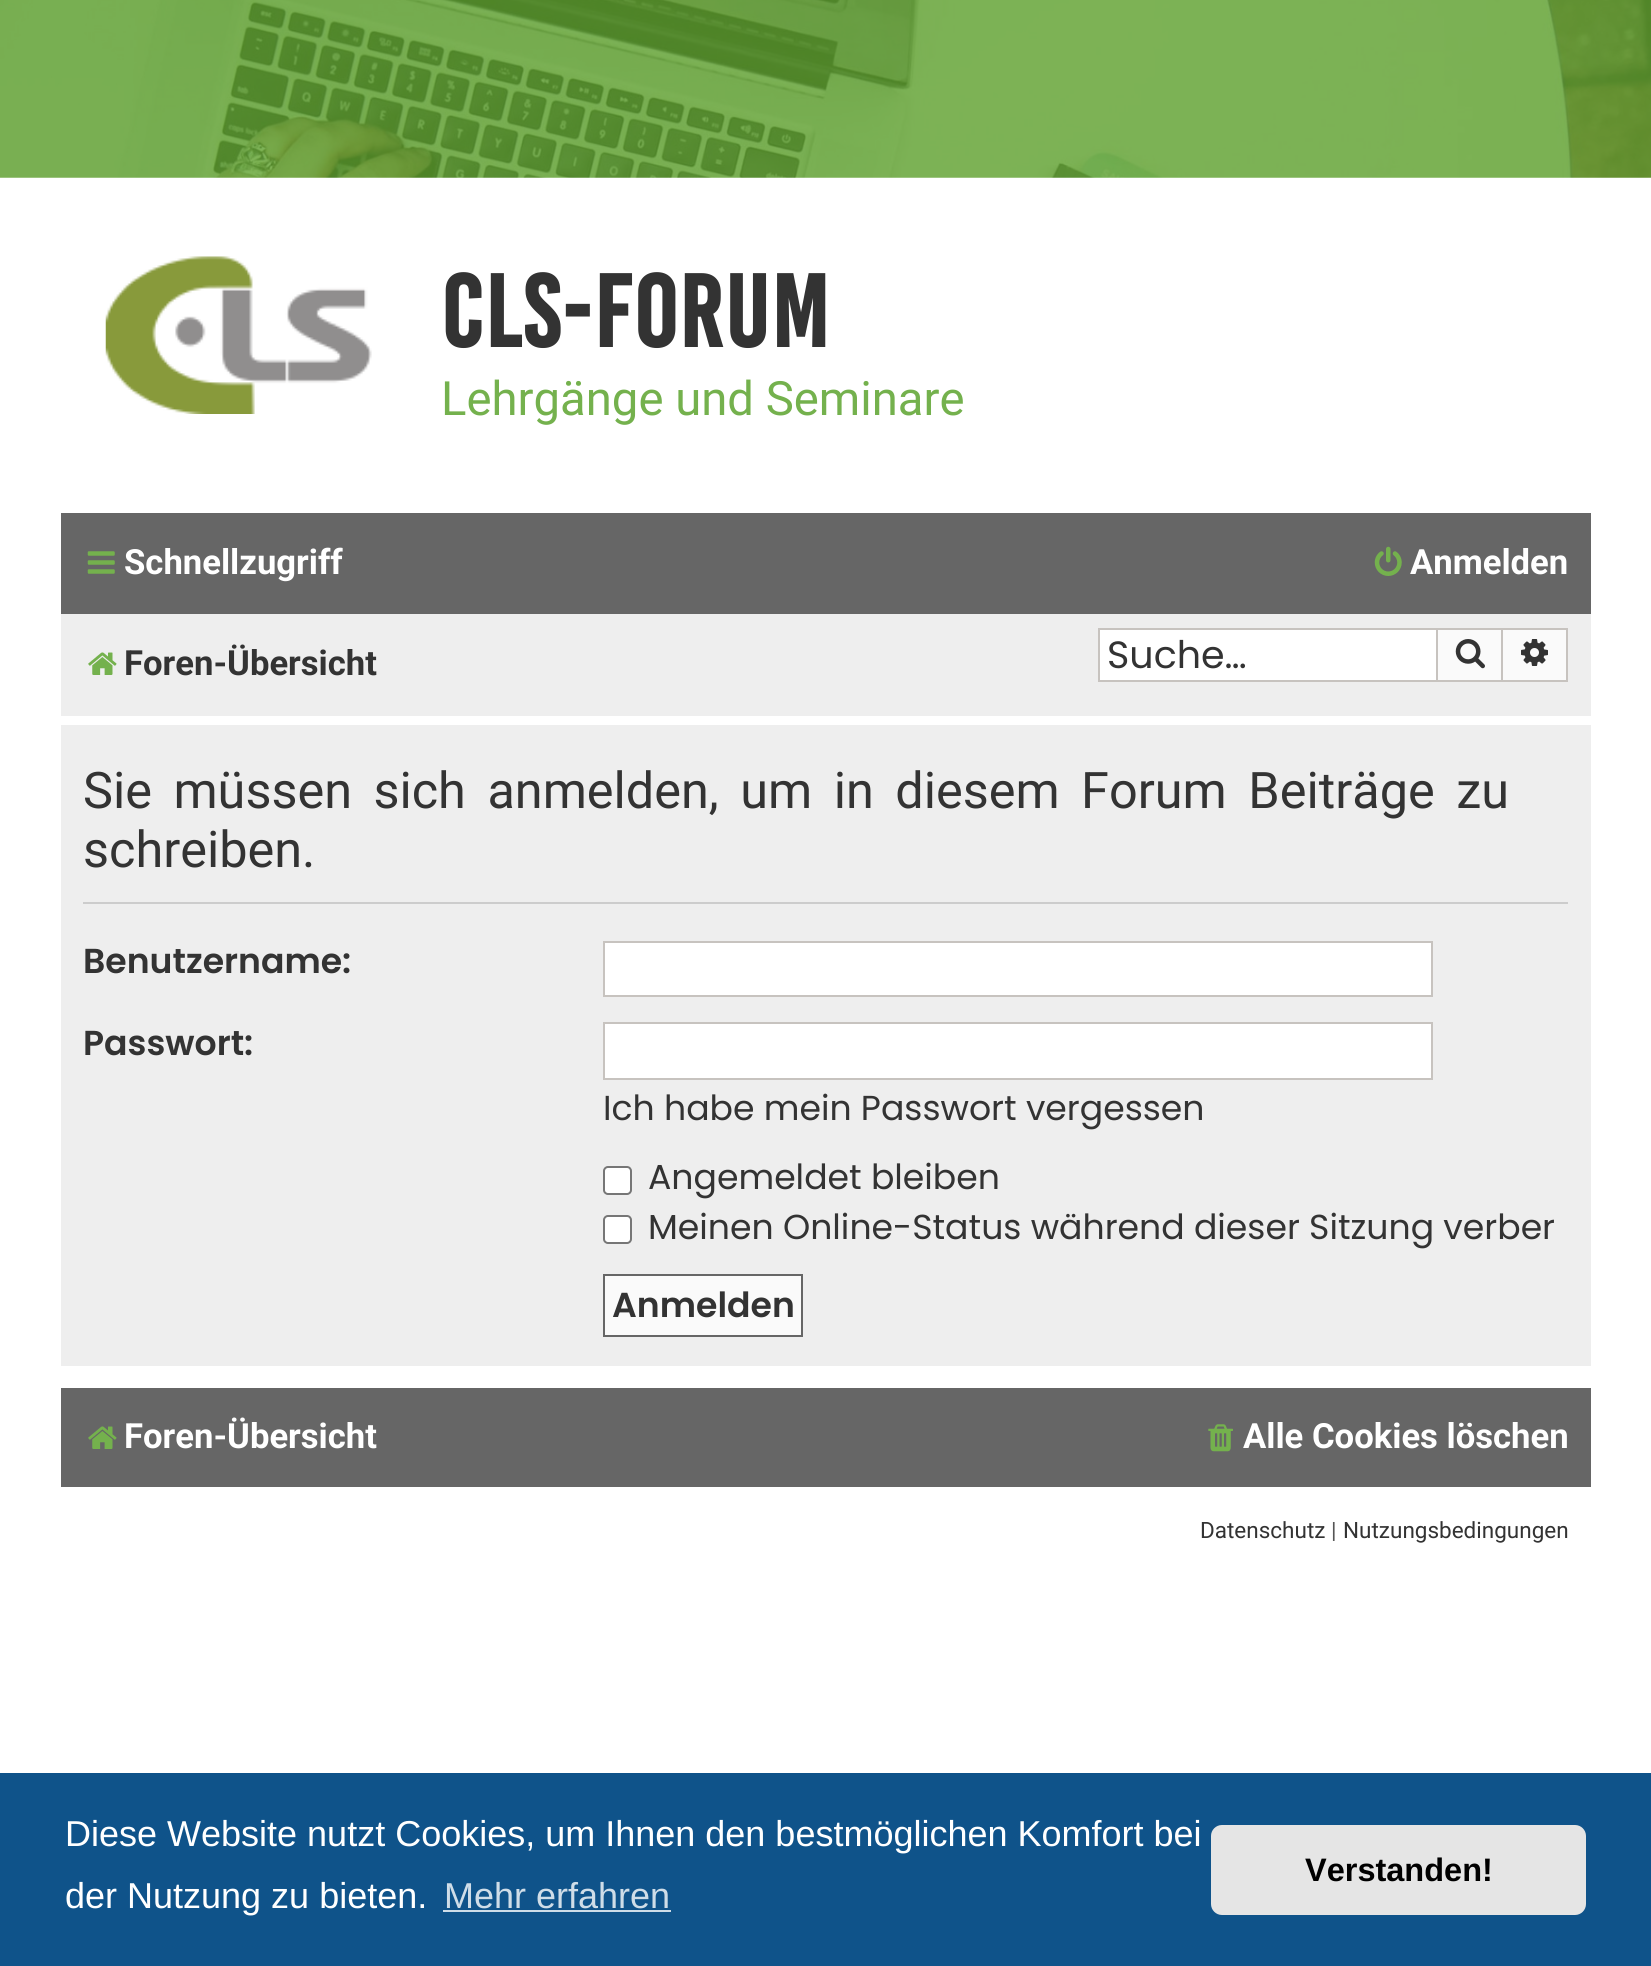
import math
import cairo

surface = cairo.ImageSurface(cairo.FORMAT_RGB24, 1651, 1966)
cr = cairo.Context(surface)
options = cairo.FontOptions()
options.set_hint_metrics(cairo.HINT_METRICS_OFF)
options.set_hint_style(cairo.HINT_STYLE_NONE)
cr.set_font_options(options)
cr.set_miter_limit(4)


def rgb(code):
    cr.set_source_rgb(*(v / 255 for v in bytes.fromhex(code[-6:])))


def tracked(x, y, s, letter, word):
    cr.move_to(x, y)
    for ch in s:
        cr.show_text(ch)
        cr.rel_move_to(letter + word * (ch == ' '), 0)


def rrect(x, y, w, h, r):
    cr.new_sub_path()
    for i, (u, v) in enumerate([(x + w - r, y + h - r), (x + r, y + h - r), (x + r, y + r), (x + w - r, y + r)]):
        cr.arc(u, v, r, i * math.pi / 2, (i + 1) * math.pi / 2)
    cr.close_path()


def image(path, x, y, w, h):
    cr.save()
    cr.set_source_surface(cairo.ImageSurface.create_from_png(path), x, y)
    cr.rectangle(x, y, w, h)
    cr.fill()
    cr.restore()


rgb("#ffffff")
cr.paint()
image("img/1.png", 0, 0, 1651, 178)
image("img/2.png", 105, 256, 267, 158)
rgb("#666666")
cr.rectangle(61, 513, 1530, 101)
cr.fill()
image("img/3.png", 87, 551, 28, 23)
image("img/4.png", 1374, 546, 28, 30)
rgb("#eeeeee")
cr.rectangle(61, 614, 1530, 102)
cr.fill()
image("img/5.png", 88, 652, 29, 23)
for x, y, w, h, color in [
    (1100, 630, 336, 50, "#ffffff"),
    (1098, 628, 338, 2, "#c7c3bf"),
    (1098, 680, 338, 2, "#c7c3bf"),
    (1098, 628, 2, 54, "#c7c3bf"),
]:
    rgb(color)
    cr.rectangle(x, y, w, h)
    cr.fill()
rgb("#fafafa")
cr.rectangle(1437, 629, 65, 52)
cr.fill_preserve()
rgb("#c7c3bf")
cr.stroke()
image("img/6.png", 1455, 639, 30, 30)
for x, y, w, h, color in [
    (1503, 630, 63, 50, "#fafafa"),
    (1503, 628, 65, 2, "#c7c3bf"),
    (1566, 628, 2, 54, "#c7c3bf"),
    (1503, 680, 65, 2, "#c7c3bf"),
]:
    rgb(color)
    cr.rectangle(x, y, w, h)
    cr.fill()
image("img/7.png", 1521, 639, 27, 27)
rgb("#eeeeee")
cr.rectangle(61, 725, 1530, 641)
cr.fill()
rgb("#cccccc")
cr.rectangle(83, 902, 1485, 2)
cr.fill()
rgb("#ffffff")
cr.rectangle(604, 942, 828, 54)
cr.fill_preserve()
rgb("#c7c3bf")
cr.stroke()
rgb("#ffffff")
cr.rectangle(604, 1023, 828, 56)
cr.fill_preserve()
rgb("#c7c3bf")
cr.stroke()
rgb("#ffffff")
rrect(604, 1167, 27, 27, 4)
cr.fill_preserve()
rgb("#767676")
cr.stroke()
rgb("#ffffff")
rrect(604, 1216, 27, 27, 4)
cr.fill_preserve()
rgb("#767676")
cr.stroke()
rgb("#fafafa")
cr.rectangle(604, 1275, 198, 61)
cr.fill_preserve()
rgb("#666666")
cr.stroke()
cr.rectangle(61, 1388, 1530, 99)
cr.fill()
image("img/8.png", 88, 1426, 29, 23)
image("img/9.png", 1208, 1424, 25, 28)
rgb("#0f538a")
cr.rectangle(0, 1773, 1651, 193)
cr.fill()
rgb("#cfdde8")
cr.rectangle(443, 1910, 228, 2)
cr.fill()
rgb("#e5e5e5")
rrect(1211, 1825, 375, 90, 11)
cr.fill()
cr.select_font_face("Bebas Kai", cairo.FONT_SLANT_NORMAL, cairo.FONT_WEIGHT_BOLD)
cr.set_font_size(78.75)
rgb("#333333")
tracked(441, 347, "CLS-Forum", 2.25, 0)
cr.select_font_face("Roboto")
cr.set_font_size(47.25)
rgb("#74b14d")
cr.move_to(441, 415)
cr.show_text("Lehrgänge und Seminare")
cr.select_font_face("Roboto", cairo.FONT_SLANT_NORMAL, cairo.FONT_WEIGHT_BOLD)
cr.set_font_size(34.65)
rgb("#ffffff")
cr.move_to(124, 574)
cr.show_text("Schnellzugriff")
cr.move_to(1410, 574)
cr.show_text("Anmelden")
rgb("#333333")
cr.move_to(124, 675)
cr.show_text("Foren-Übersicht")
cr.select_font_face("Poppins")
cr.set_font_size(38)
cr.move_to(1107, 668)
cr.show_text("Suche…")
cr.select_font_face("Roboto")
cr.set_font_size(50.4)
tracked(83, 808, "Sie müssen sich anmelden, um in diesem Forum Beiträge zu", 0, 9)
cr.move_to(83, 867)
cr.show_text("schreiben.")
cr.select_font_face("Poppins SemiBold")
cr.set_font_size(34.65)
cr.move_to(83, 973)
cr.show_text("Benutzername:")
cr.move_to(83, 1055)
cr.show_text("Passwort:")
cr.select_font_face("Poppins")
for x, y, s in [
    (603, 1120, "Ich habe mein Passwort vergessen"),
    (648, 1189, "Angemeldet bleiben"),
    (648, 1239, "Meinen Online-Status während dieser Sitzung verber"),
]:
    cr.move_to(x, y)
    cr.show_text(s)
cr.select_font_face("Poppins SemiBold")
cr.move_to(612, 1317)
cr.show_text("Anmelden")
cr.select_font_face("Roboto", cairo.FONT_SLANT_NORMAL, cairo.FONT_WEIGHT_BOLD)
rgb("#ffffff")
cr.move_to(124, 1448)
cr.show_text("Foren-Übersicht")
cr.move_to(1243, 1448)
cr.show_text("Alle Cookies löschen")
cr.select_font_face("Roboto")
cr.set_font_size(22.5)
rgb("#333333")
cr.move_to(1200, 1538)
cr.show_text("Datenschutz")
rgb("#555555")
cr.move_to(1331, 1538)
cr.show_text("|")
rgb("#333333")
cr.move_to(1343, 1538)
cr.show_text("Nutzungsbedingungen")
cr.select_font_face("Liberation Sans")
cr.set_font_size(36)
rgb("#ffffff")
cr.move_to(65, 1846)
cr.show_text("Diese Website nutzt Cookies, um Ihnen den bestmöglichen Komfort bei")
cr.move_to(65, 1908)
cr.show_text("der Nutzung zu bieten.")
rgb("#cfdde8")
cr.move_to(444, 1908)
cr.show_text("Mehr erfahren")
cr.select_font_face("Liberation Sans", cairo.FONT_SLANT_NORMAL, cairo.FONT_WEIGHT_BOLD)
cr.set_font_size(32.5)
rgb("#000000")
cr.move_to(1305, 1881)
cr.show_text("Verstanden!")
surface.write_to_png("page.png")
